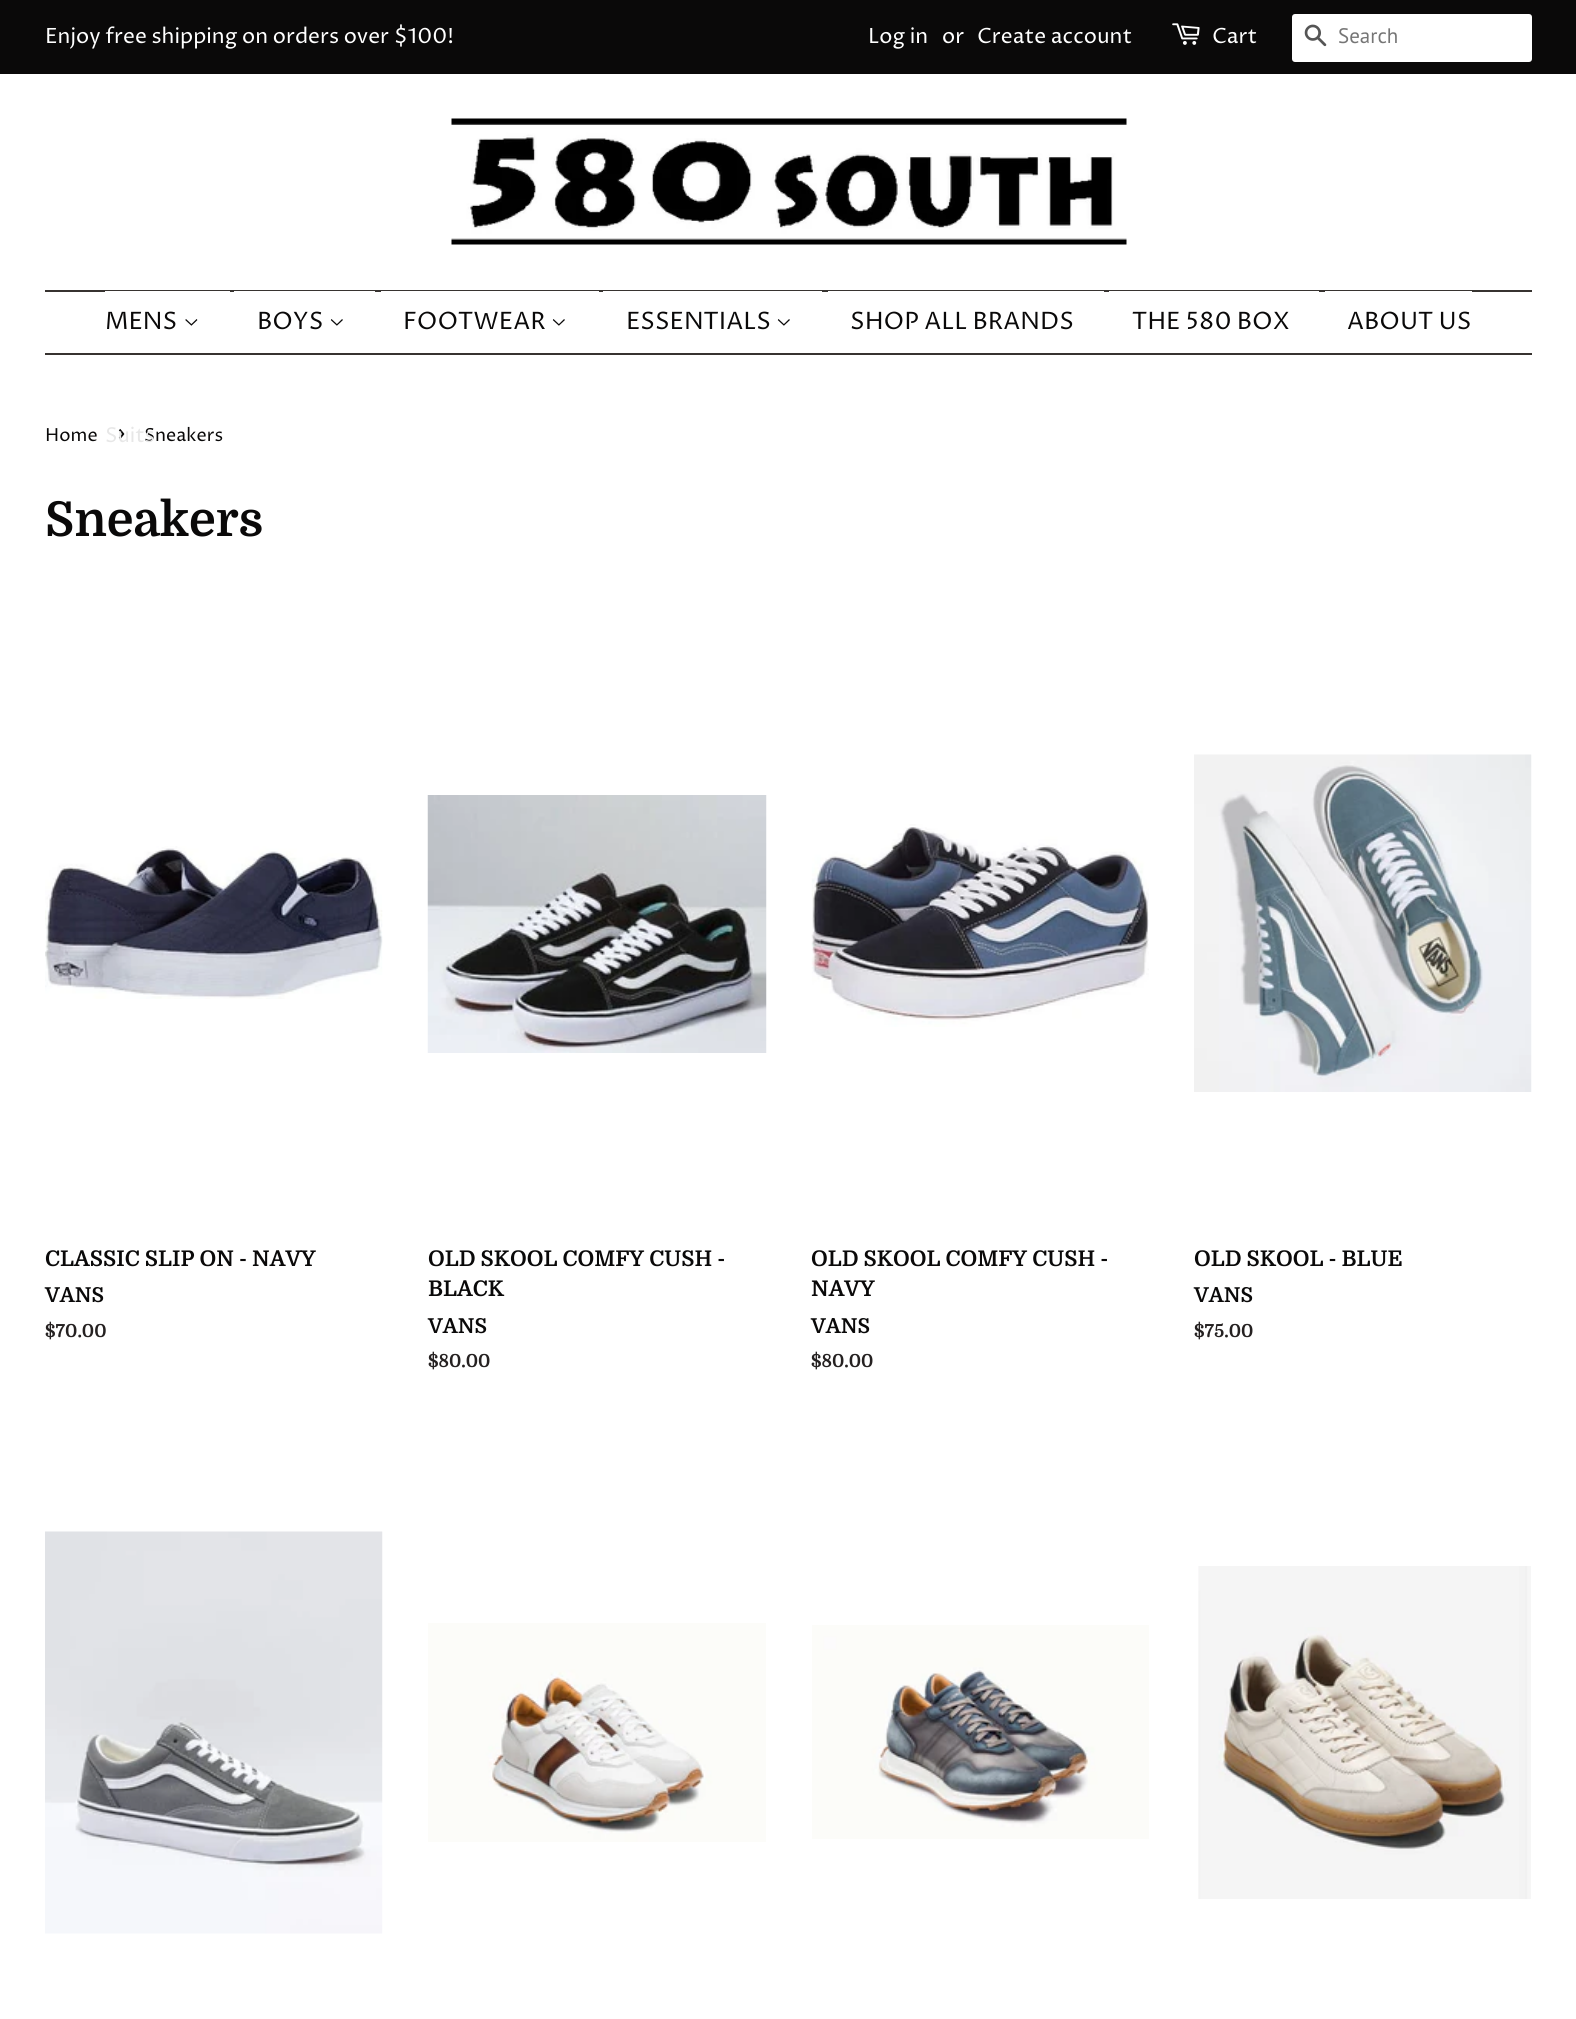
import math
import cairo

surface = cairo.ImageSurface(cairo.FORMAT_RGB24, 1576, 2019)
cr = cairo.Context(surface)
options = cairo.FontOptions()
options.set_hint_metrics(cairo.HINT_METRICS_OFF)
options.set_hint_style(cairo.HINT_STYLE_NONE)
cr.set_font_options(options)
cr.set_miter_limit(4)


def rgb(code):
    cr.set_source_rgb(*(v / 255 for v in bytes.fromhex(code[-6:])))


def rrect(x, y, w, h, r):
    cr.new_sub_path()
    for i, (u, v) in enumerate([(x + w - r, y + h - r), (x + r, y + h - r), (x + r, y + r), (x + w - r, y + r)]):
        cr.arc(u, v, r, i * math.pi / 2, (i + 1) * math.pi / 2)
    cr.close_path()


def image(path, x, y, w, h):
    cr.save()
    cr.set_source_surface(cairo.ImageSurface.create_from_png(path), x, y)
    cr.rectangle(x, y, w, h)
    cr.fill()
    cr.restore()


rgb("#ffffff")
cr.paint()
rgb("#0a0909")
cr.rectangle(0, 0, 1576, 74)
cr.fill()
image("img/1.png", 1172, 23, 28, 22)
rgb("#ffffff")
rrect(1292, 14, 240, 48, 3)
cr.fill()
image("img/2.png", 1304, 24, 23, 23)
image("img/3.png", 451, 118, 676, 127)
for x, y, w, h, color in [
    (45, 290, 1487, 2, "#373330"),
    (45, 353, 1487, 2, "#373330"),
    (105, 291, 125, 1, "#ffffff"),
]:
    rgb(color)
    cr.rectangle(x, y, w, h)
    cr.fill()
image("img/4.png", 185, 319, 13, 7)
cr.rectangle(234, 291, 141, 1)
cr.fill()
image("img/5.png", 330, 319, 13, 7)
cr.rectangle(381, 291, 218, 1)
cr.fill()
image("img/5.png", 552, 319, 13, 7)
cr.rectangle(603, 291, 219, 1)
cr.fill()
image("img/5.png", 777, 319, 13, 7)
for x, y, w, h, color in [
    (828, 291, 276, 1, "#ffffff"),
    (1109, 291, 210, 1, "#ffffff"),
    (1325, 291, 147, 1, "#ffffff"),
]:
    rgb(color)
    cr.rectangle(x, y, w, h)
    cr.fill()
image("img/6.png", 45, 846, 338, 153)
image("img/7.png", 427, 795, 340, 258)
image("img/8.png", 811, 824, 338, 203)
image("img/9.png", 1194, 754, 338, 338)
image("img/10.png", 45, 1531, 338, 403)
image("img/11.png", 428, 1623, 338, 219)
image("img/12.png", 812, 1625, 337, 214)
image("img/13.png", 1198, 1566, 333, 333)
cr.select_font_face("Proza Libre")
cr.set_font_size(21)
for x, y, s in [
    (45, 43, "Enjoy free shipping on orders over $100!"),
    (868, 43, "Log in"),
    (942, 43, "or"),
    (977, 43, "Create account"),
    (1212, 43, "Cart"),
]:
    cr.move_to(x, y)
    cr.show_text(s)
cr.select_font_face("PT Sans")
rgb("#757575")
cr.move_to(1338, 43)
cr.show_text("Search")
cr.select_font_face("Proza Libre")
cr.set_font_size(24)
rgb("#0a0909")
for x, y, s in [
    (105, 329, "MENS"),
    (257, 329, "BOYS"),
    (403, 329, "FOOTWEAR"),
    (626, 329, "ESSENTIALS"),
    (850, 329, "SHOP ALL BRANDS"),
    (1132, 329, "THE 580 BOX"),
    (1347, 329, "ABOUT US"),
]:
    cr.move_to(x, y)
    cr.show_text(s)
cr.set_font_size(18)
cr.move_to(45, 441)
cr.show_text("Home")
cr.set_font_size(25)
cr.move_to(117, 441)
cr.show_text("›")
cr.set_font_size(18)
cr.move_to(144, 441)
cr.show_text("Sneakers")
cr.set_font_size(20.5)
rgb("#e7e7e7")
cr.move_to(105, 442)
cr.show_text("Suits")
cr.select_font_face("Domine", cairo.FONT_SLANT_NORMAL, cairo.FONT_WEIGHT_BOLD)
cr.set_font_size(48)
rgb("#0a0909")
cr.move_to(45, 536)
cr.show_text("Sneakers")
cr.set_font_size(21.6)
cr.move_to(45, 1266)
cr.show_text("CLASSIC SLIP ON - NAVY")
cr.set_font_size(20.5)
cr.move_to(45, 1302)
cr.show_text("VANS")
cr.set_font_size(18)
rgb("#252121")
cr.move_to(45, 1337)
cr.show_text("$70.00")
cr.set_font_size(21.6)
rgb("#0a0909")
cr.move_to(428, 1266)
cr.show_text("OLD SKOOL COMFY CUSH -")
cr.move_to(428, 1296)
cr.show_text("BLACK")
cr.set_font_size(20.5)
cr.move_to(428, 1333)
cr.show_text("VANS")
cr.set_font_size(18)
rgb("#252121")
cr.move_to(428, 1367)
cr.show_text("$80.00")
cr.set_font_size(21.6)
rgb("#0a0909")
cr.move_to(811, 1266)
cr.show_text("OLD SKOOL COMFY CUSH -")
cr.move_to(811, 1296)
cr.show_text("NAVY")
cr.set_font_size(20.5)
cr.move_to(811, 1333)
cr.show_text("VANS")
cr.set_font_size(18)
rgb("#252121")
cr.move_to(811, 1367)
cr.show_text("$80.00")
cr.set_font_size(21.6)
rgb("#0a0909")
cr.move_to(1194, 1266)
cr.show_text("OLD SKOOL - BLUE")
cr.set_font_size(20.5)
cr.move_to(1194, 1302)
cr.show_text("VANS")
cr.set_font_size(18)
rgb("#252121")
cr.move_to(1194, 1337)
cr.show_text("$75.00")
surface.write_to_png("page.png")
